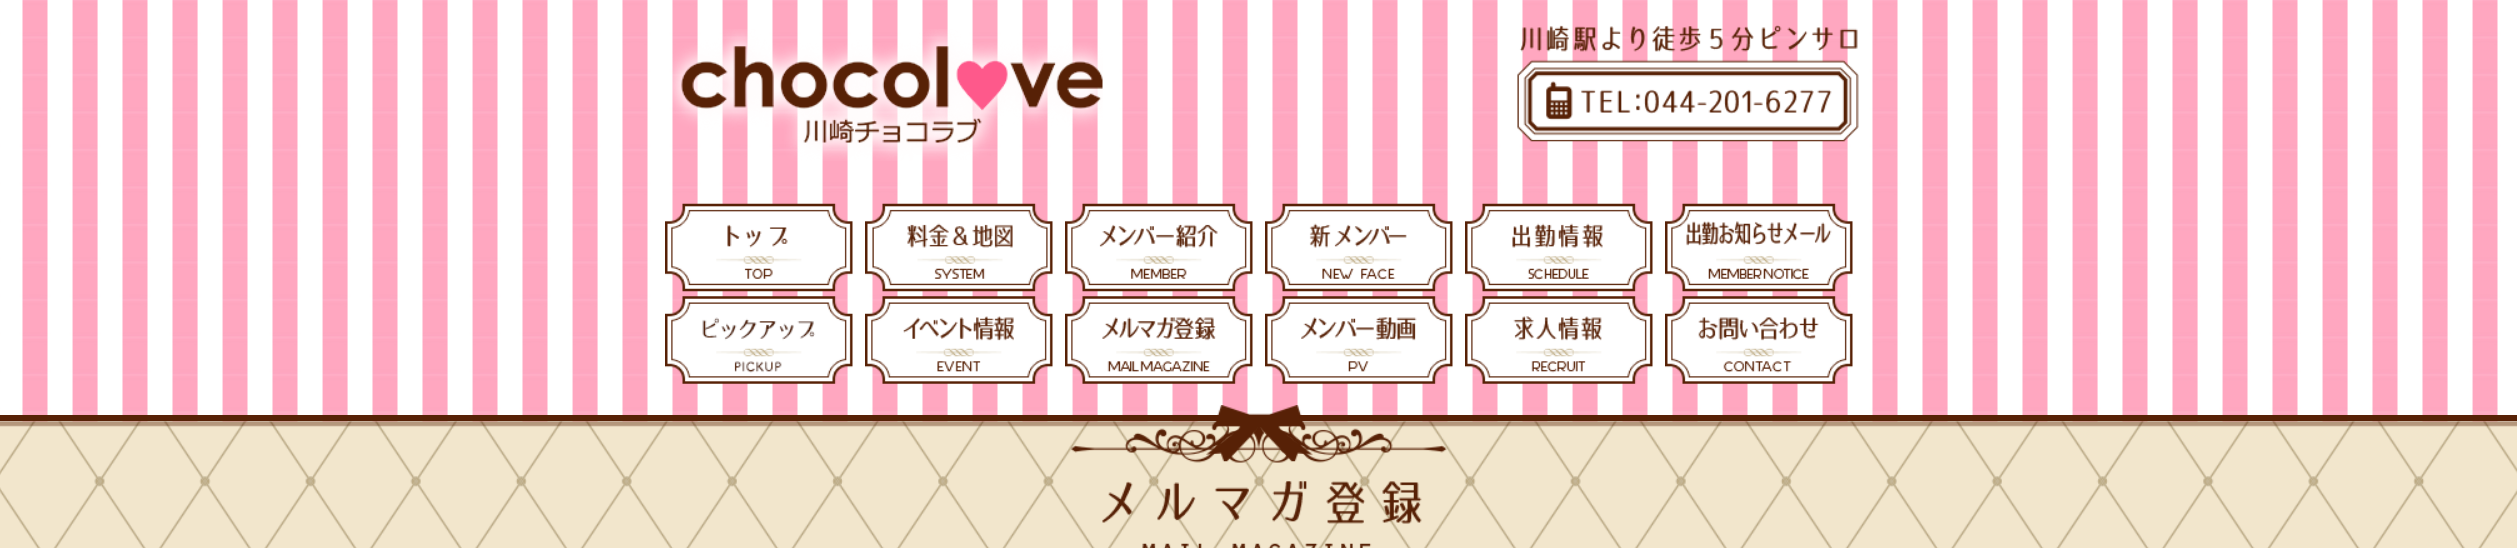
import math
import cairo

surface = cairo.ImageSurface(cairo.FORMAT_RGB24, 2517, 548)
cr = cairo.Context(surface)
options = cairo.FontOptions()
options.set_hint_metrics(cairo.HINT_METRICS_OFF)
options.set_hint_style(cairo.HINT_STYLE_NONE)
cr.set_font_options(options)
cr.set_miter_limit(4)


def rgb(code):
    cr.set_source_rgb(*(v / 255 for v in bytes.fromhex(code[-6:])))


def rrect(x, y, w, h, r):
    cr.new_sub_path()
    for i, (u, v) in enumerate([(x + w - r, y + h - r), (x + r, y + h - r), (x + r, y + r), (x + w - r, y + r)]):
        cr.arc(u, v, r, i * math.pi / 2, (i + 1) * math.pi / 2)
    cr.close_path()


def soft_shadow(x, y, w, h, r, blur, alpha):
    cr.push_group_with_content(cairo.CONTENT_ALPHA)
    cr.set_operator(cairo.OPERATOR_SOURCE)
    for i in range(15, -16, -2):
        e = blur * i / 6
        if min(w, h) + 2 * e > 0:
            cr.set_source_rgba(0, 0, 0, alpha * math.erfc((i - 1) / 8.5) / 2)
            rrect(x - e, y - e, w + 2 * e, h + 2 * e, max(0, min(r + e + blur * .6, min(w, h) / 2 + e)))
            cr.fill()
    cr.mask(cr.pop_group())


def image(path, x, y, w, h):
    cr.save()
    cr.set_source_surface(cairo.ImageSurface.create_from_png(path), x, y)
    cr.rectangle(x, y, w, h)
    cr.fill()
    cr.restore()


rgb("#ffffff")
cr.paint()
image("img/17.png", 0, 421, 2517, 127)
image("img/18.png", 1071, 421, 376, 127)
rgb("#572106")
soft_shadow(-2, 0, 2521, 426, 0, 0.5, 0.4)
image("img/1.png", 0, 0, 2517, 422)
rgb("#572106")
cr.rectangle(0, 415, 2517, 6)
cr.fill()
image("img/2.png", 672, 29, 431, 132)
image("img/3.png", 1517, 25, 342, 117)
image("img/4.png", 665, 203, 188, 89)
image("img/5.png", 865, 203, 188, 89)
image("img/6.png", 1065, 203, 188, 89)
image("img/7.png", 1265, 203, 188, 89)
image("img/8.png", 1465, 203, 188, 89)
image("img/9.png", 1665, 203, 188, 89)
image("img/10.png", 665, 296, 188, 88)
image("img/11.png", 865, 296, 188, 88)
image("img/12.png", 1065, 296, 188, 88)
image("img/13.png", 1265, 296, 188, 88)
image("img/14.png", 1465, 296, 188, 88)
image("img/15.png", 1665, 296, 188, 88)
image("img/16.png", 1206, 405, 107, 57)
surface.write_to_png("page.png")
